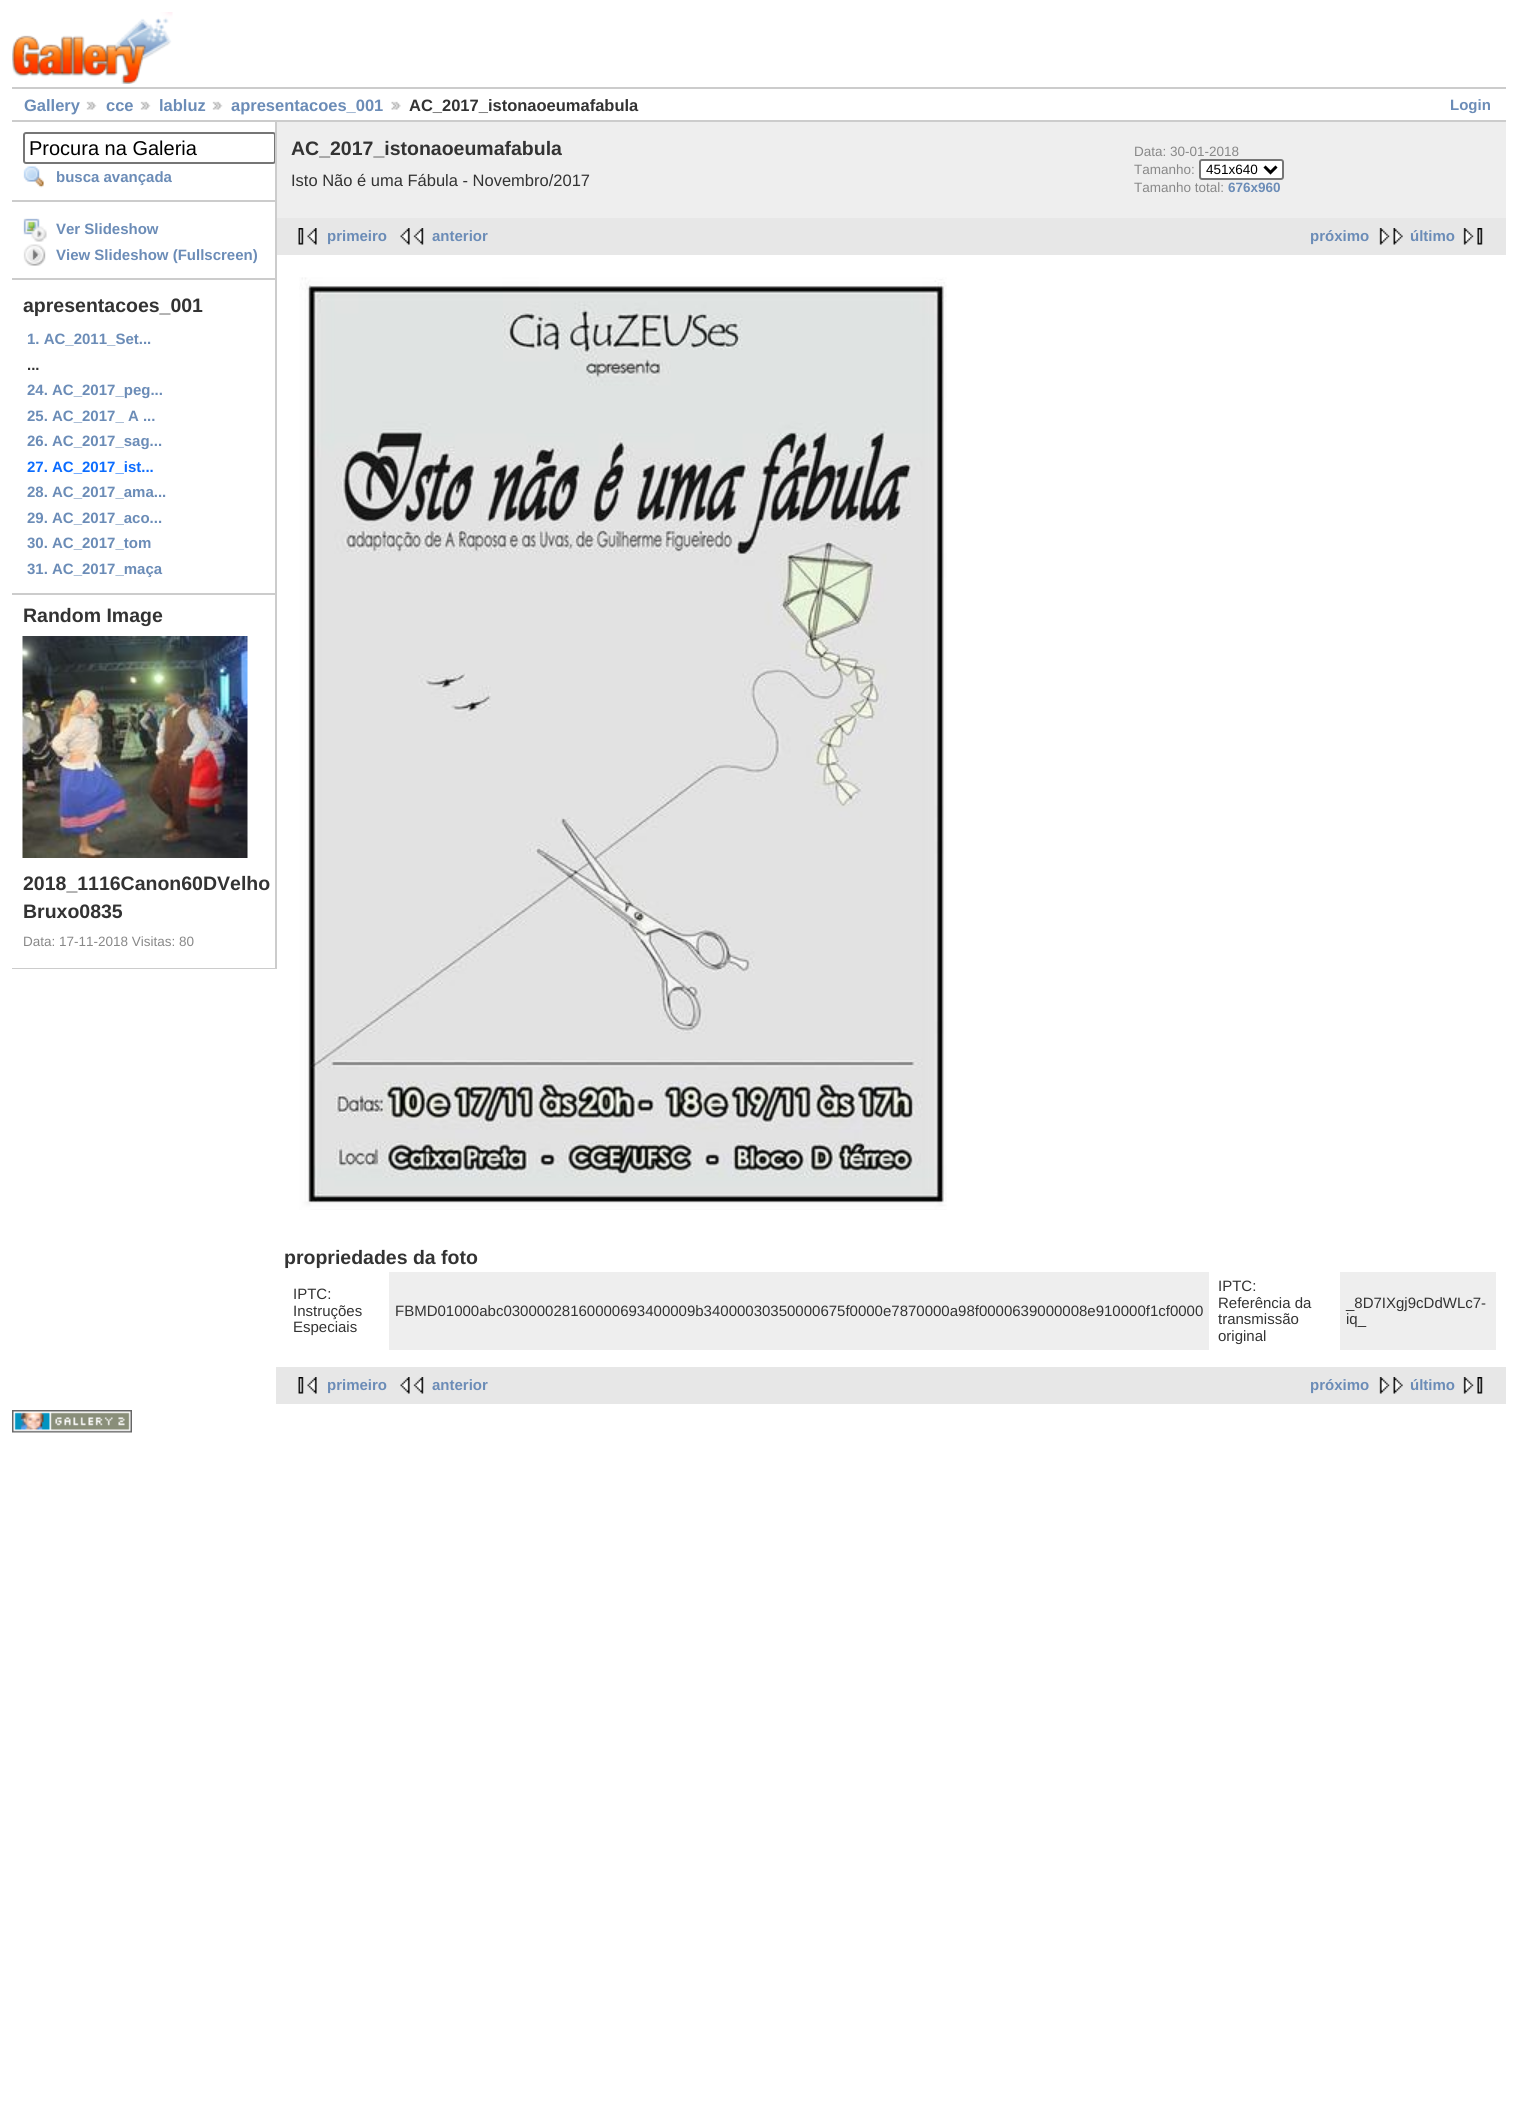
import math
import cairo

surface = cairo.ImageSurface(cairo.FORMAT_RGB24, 1517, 2110)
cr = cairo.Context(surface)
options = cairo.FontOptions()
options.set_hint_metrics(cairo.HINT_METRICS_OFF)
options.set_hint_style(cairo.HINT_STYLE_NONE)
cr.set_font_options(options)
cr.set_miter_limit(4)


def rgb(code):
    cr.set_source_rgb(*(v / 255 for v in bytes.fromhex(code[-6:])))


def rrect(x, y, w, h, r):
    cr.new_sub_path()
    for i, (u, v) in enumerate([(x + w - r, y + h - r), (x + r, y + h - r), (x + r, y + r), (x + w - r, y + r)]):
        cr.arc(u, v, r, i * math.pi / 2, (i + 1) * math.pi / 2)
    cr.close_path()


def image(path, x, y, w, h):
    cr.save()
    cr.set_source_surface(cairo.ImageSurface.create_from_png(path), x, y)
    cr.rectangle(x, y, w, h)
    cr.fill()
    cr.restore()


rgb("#ffffff")
cr.paint()
image("img/1.png", 12, 12, 161, 72)
rgb("#cccccc")
cr.rectangle(12, 87, 1494, 2)
cr.fill()
cr.rectangle(12, 120, 1494, 2)
cr.fill()
image("img/2.png", 86, 101, 11, 9)
image("img/2.png", 140, 101, 11, 9)
image("img/2.png", 212, 101, 11, 9)
image("img/3.png", 391, 101, 10, 9)
cr.rectangle(275, 122, 2, 847)
cr.fill()
cr.rectangle(12, 200, 263, 2)
cr.fill()
cr.save()
cr.rectangle(12, 122, 263, 847)
cr.clip()
rrect(24, 133, 251, 30, 2)
rgb("#767676")
cr.stroke()
cr.restore()
image("img/4.png", 23, 166, 21, 22)
cr.rectangle(12, 278, 263, 2)
cr.fill()
image("img/5.png", 23, 218, 24, 24)
image("img/6.png", 23, 244, 23, 22)
cr.rectangle(12, 593, 263, 2)
cr.fill()
cr.rectangle(12, 968, 263, 1)
cr.fill()
image("img/7.png", 22, 636, 226, 222)
rgb("#eeeeee")
cr.rectangle(277, 122, 1229, 96)
cr.fill()
rgb("#ffffff")
rrect(1200, 160, 83, 19, 2)
cr.fill_preserve()
rgb("#767676")
cr.stroke()
cr.new_path()
cr.move_to(1264.5, 166.5)
cr.line_to(1270.5, 172.5)
cr.line_to(1276.5, 166.5)
rgb("#000000")
cr.set_line_width(3)
cr.stroke()
rgb("#e7e7e7")
cr.rectangle(277, 218, 1229, 37)
cr.fill()
image("img/8.png", 298, 228, 19, 17)
image("img/9.png", 400, 228, 24, 17)
image("img/10.png", 1379, 228, 24, 17)
image("img/11.png", 1463, 228, 20, 17)
image("img/12.png", 299, 277, 648, 933)
for x, y, w, h, color in [
    (389, 1272, 820, 78, "#eeeeee"),
    (1340, 1272, 156, 78, "#eeeeee"),
    (276, 1367, 1230, 37, "#e7e7e7"),
]:
    rgb(color)
    cr.rectangle(x, y, w, h)
    cr.fill()
image("img/8.png", 298, 1377, 19, 17)
image("img/9.png", 400, 1377, 24, 17)
image("img/10.png", 1379, 1377, 24, 17)
image("img/11.png", 1463, 1377, 20, 17)
image("img/13.png", 12, 1410, 120, 23)
cr.select_font_face("Liberation Sans", cairo.FONT_SLANT_NORMAL, cairo.FONT_WEIGHT_BOLD)
cr.set_font_size(16.5)
rgb("#6b8cb7")
for x, y, s in [
    (24, 111, "Gallery"),
    (106, 111, "cce"),
    (159, 111, "labluz"),
    (231, 111, "apresentacoes_001"),
]:
    cr.move_to(x, y)
    cr.show_text(s)
rgb("#333333")
cr.move_to(409, 111)
cr.show_text("AC_2017_istonaoeumafabula")
cr.set_font_size(15)
rgb("#6b8cb7")
cr.move_to(1450, 110)
cr.show_text("Login")
cr.select_font_face("Liberation Sans")
cr.set_font_size(20)
rgb("#000000")
cr.move_to(29, 155)
cr.show_text("Procura na Galeria")
cr.select_font_face("Liberation Sans", cairo.FONT_SLANT_NORMAL, cairo.FONT_WEIGHT_BOLD)
cr.set_font_size(15)
rgb("#6b8cb7")
for x, y, s in [
    (56, 182, "busca avançada"),
    (56, 234, "Ver Slideshow"),
    (56, 260, "View Slideshow (Fullscreen)"),
]:
    cr.move_to(x, y)
    cr.show_text(s)
cr.set_font_size(19.5)
rgb("#333333")
cr.move_to(23, 312)
cr.show_text("apresentacoes_001")
cr.set_font_size(15)
rgb("#6b8cb7")
cr.move_to(27, 344)
cr.show_text("1. AC_2011_Set...")
rgb("#333333")
cr.move_to(27, 370)
cr.show_text("...")
rgb("#6b8cb7")
for x, y, s in [
    (27, 395, "24. AC_2017_peg..."),
    (27, 421, "25. AC_2017_ A ..."),
    (27, 446, "26. AC_2017_sag..."),
]:
    cr.move_to(x, y)
    cr.show_text(s)
rgb("#0b6cff")
cr.move_to(27, 472)
cr.show_text("27. AC_2017_ist...")
rgb("#6b8cb7")
for x, y, s in [
    (27, 497, "28. AC_2017_ama..."),
    (27, 523, "29. AC_2017_aco..."),
    (27, 548, "30. AC_2017_tom"),
    (27, 574, "31. AC_2017_maça"),
]:
    cr.move_to(x, y)
    cr.show_text(s)
cr.set_font_size(19.5)
rgb("#333333")
for x, y, s in [
    (23, 622, "Random Image"),
    (23, 890, "2018_1116Canon60DVelho"),
    (23, 918, "Bruxo0835"),
]:
    cr.move_to(x, y)
    cr.show_text(s)
cr.select_font_face("Liberation Sans")
cr.set_font_size(13.5)
rgb("#888888")
cr.move_to(23, 946)
cr.show_text("Data: 17-11-2018 Visitas: 80")
cr.select_font_face("Liberation Sans", cairo.FONT_SLANT_NORMAL, cairo.FONT_WEIGHT_BOLD)
cr.set_font_size(19.5)
rgb("#333333")
cr.move_to(291, 155)
cr.show_text("AC_2017_istonaoeumafabula")
cr.select_font_face("Liberation Sans")
cr.set_font_size(16.5)
cr.move_to(291, 186)
cr.show_text("Isto Não é uma Fábula - Novembro/2017")
cr.set_font_size(13.5)
rgb("#888888")
cr.move_to(1134, 156)
cr.show_text("Data: 30-01-2018")
cr.move_to(1134, 174)
cr.show_text("Tamanho:")
rgb("#000000")
cr.move_to(1206, 174)
cr.show_text("451x640")
rgb("#888888")
cr.move_to(1134, 192)
cr.show_text("Tamanho total:")
cr.select_font_face("Liberation Sans", cairo.FONT_SLANT_NORMAL, cairo.FONT_WEIGHT_BOLD)
rgb("#6b8cb7")
cr.move_to(1228, 192)
cr.show_text("676x960")
cr.set_font_size(15)
for x, y, s in [
    (327, 241, "primeiro"),
    (432, 241, "anterior"),
    (1310, 241, "próximo"),
    (1410, 241, "último"),
]:
    cr.move_to(x, y)
    cr.show_text(s)
cr.set_font_size(19.5)
rgb("#333333")
cr.move_to(284, 1264)
cr.show_text("propriedades da foto")
cr.select_font_face("Liberation Sans")
cr.set_font_size(15)
for x, y, s in [
    (293, 1299, "IPTC:"),
    (293, 1316, "Instruções"),
    (293, 1332, "Especiais"),
    (395, 1316, "FBMD01000abc03000028160000693400009b34000030350000675f0000e7870000a98f0000639000008e910000f1cf0000"),
    (1218, 1291, "IPTC:"),
    (1218, 1308, "Referência da"),
    (1218, 1324, "transmissão"),
    (1218, 1341, "original"),
    (1346, 1308, "_8D7IXgj9cDdWLc7-"),
    (1346, 1324, "iq_"),
]:
    cr.move_to(x, y)
    cr.show_text(s)
cr.select_font_face("Liberation Sans", cairo.FONT_SLANT_NORMAL, cairo.FONT_WEIGHT_BOLD)
rgb("#6b8cb7")
for x, y, s in [
    (327, 1390, "primeiro"),
    (432, 1390, "anterior"),
    (1310, 1390, "próximo"),
    (1410, 1390, "último"),
]:
    cr.move_to(x, y)
    cr.show_text(s)
surface.write_to_png("page.png")
